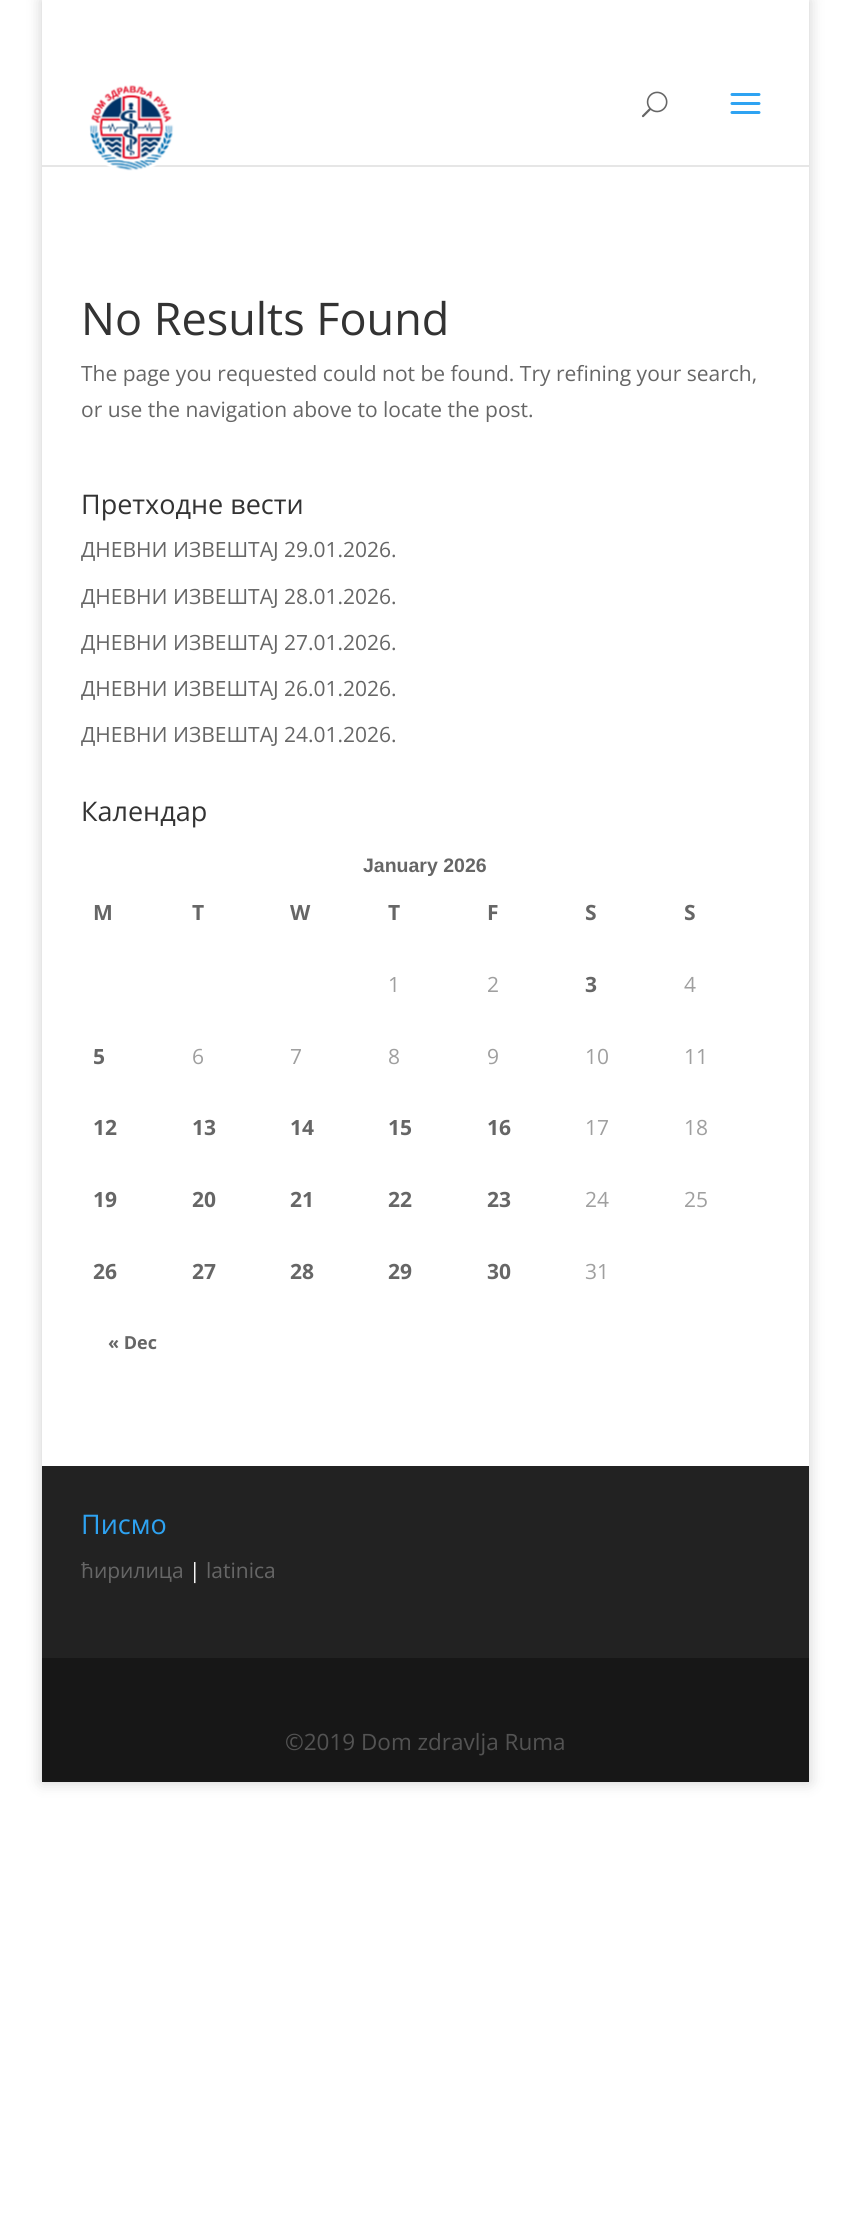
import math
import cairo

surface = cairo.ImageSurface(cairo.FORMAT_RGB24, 850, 2233)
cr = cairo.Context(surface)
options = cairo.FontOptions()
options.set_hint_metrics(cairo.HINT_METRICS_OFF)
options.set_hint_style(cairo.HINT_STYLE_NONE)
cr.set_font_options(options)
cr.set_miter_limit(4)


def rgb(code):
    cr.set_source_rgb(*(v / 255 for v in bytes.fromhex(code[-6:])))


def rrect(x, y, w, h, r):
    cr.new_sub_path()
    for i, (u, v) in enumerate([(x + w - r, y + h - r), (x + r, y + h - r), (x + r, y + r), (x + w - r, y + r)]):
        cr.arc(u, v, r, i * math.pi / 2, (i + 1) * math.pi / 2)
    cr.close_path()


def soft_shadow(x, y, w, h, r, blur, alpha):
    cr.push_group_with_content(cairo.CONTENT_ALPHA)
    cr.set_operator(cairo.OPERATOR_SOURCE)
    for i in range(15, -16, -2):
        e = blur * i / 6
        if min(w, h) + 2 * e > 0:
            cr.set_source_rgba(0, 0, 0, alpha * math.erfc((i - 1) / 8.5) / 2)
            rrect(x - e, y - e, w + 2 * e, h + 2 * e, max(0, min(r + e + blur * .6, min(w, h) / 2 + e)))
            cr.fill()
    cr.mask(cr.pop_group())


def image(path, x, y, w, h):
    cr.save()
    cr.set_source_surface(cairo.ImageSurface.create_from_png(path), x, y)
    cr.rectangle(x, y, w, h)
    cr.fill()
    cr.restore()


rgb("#ffffff")
cr.paint()
rgb("#000000")
soft_shadow(42, 0, 767, 1782, 0, 7.5, 0.2)
rgb("#ffffff")
cr.rectangle(42, 165, 767, 1301)
cr.fill()
cr.set_source_rgba(0, 0, 0, 0.1)
cr.new_path()
cr.move_to(42, 165)
cr.line_to(42, 167)
cr.line_to(809, 167)
cr.line_to(809, 2)
cr.line_to(808, 2)
cr.line_to(808, 165)
cr.close_path()
cr.fill()
rgb("#ffffff")
cr.rectangle(42, 0, 767, 165)
cr.fill()
image("img/1.png", 89, 85, 85, 86)
image("img/2.png", 641, 91, 27, 27)
image("img/3.png", 730, 93, 31, 21)
rgb("#222222")
cr.rectangle(42, 1466, 767, 192)
cr.fill()
rgb("#171717")
cr.rectangle(42, 1658, 767, 124)
cr.fill()
cr.select_font_face("Open Sans")
cr.set_font_size(45)
rgb("#333333")
cr.move_to(81, 335)
cr.show_text("No Results Found")
cr.set_font_size(21)
rgb("#666666")
cr.move_to(81, 381)
cr.show_text("The page you requested could not be found. Try refining your search,")
cr.move_to(81, 417)
cr.show_text("or use the navigation above to locate the post.")
cr.set_font_size(27)
rgb("#333333")
cr.move_to(81, 514)
cr.show_text("Претходне вести")
cr.set_font_size(21)
rgb("#666666")
for x, y, s in [
    (81, 557, "ДНЕВНИ ИЗВЕШТАЈ 29.01.2026."),
    (81, 604, "ДНЕВНИ ИЗВЕШТАЈ 28.01.2026."),
    (81, 650, "ДНЕВНИ ИЗВЕШТАЈ 27.01.2026."),
    (81, 696, "ДНЕВНИ ИЗВЕШТАЈ 26.01.2026."),
    (81, 742, "ДНЕВНИ ИЗВЕШТАЈ 24.01.2026."),
]:
    cr.move_to(x, y)
    cr.show_text(s)
cr.set_font_size(27)
rgb("#333333")
cr.move_to(81, 821)
cr.show_text("Календар")
cr.select_font_face("Liberation Sans", cairo.FONT_SLANT_NORMAL, cairo.FONT_WEIGHT_BOLD)
cr.set_font_size(19.5)
rgb("#666666")
cr.move_to(363, 872)
cr.show_text("January 2026")
cr.select_font_face("Open Sans", cairo.FONT_SLANT_NORMAL, cairo.FONT_WEIGHT_BOLD)
cr.set_font_size(21)
for x, y, s in [
    (93, 920, "M"),
    (192, 920, "T"),
    (290, 920, "W"),
    (388, 920, "T"),
    (487, 920, "F"),
    (585, 920, "S"),
    (684, 920, "S"),
]:
    cr.move_to(x, y)
    cr.show_text(s)
cr.select_font_face("Open Sans")
rgb("#9f9f9f")
cr.move_to(388, 992)
cr.show_text("1")
cr.move_to(487, 992)
cr.show_text("2")
cr.select_font_face("Open Sans", cairo.FONT_SLANT_NORMAL, cairo.FONT_WEIGHT_BOLD)
rgb("#666666")
cr.move_to(585, 992)
cr.show_text("3")
cr.select_font_face("Open Sans")
rgb("#9f9f9f")
cr.move_to(684, 992)
cr.show_text("4")
cr.select_font_face("Open Sans", cairo.FONT_SLANT_NORMAL, cairo.FONT_WEIGHT_BOLD)
rgb("#666666")
cr.move_to(93, 1064)
cr.show_text("5")
cr.select_font_face("Open Sans")
rgb("#9f9f9f")
for x, y, s in [
    (192, 1064, "6"),
    (290, 1064, "7"),
    (388, 1064, "8"),
    (487, 1064, "9"),
    (585, 1064, "10"),
    (684, 1064, "11"),
]:
    cr.move_to(x, y)
    cr.show_text(s)
cr.select_font_face("Open Sans", cairo.FONT_SLANT_NORMAL, cairo.FONT_WEIGHT_BOLD)
rgb("#666666")
for x, y, s in [
    (93, 1135, "12"),
    (192, 1135, "13"),
    (290, 1135, "14"),
    (388, 1135, "15"),
    (487, 1135, "16"),
]:
    cr.move_to(x, y)
    cr.show_text(s)
cr.select_font_face("Open Sans")
rgb("#9f9f9f")
cr.move_to(585, 1135)
cr.show_text("17")
cr.move_to(684, 1135)
cr.show_text("18")
cr.select_font_face("Open Sans", cairo.FONT_SLANT_NORMAL, cairo.FONT_WEIGHT_BOLD)
rgb("#666666")
for x, y, s in [
    (93, 1207, "19"),
    (192, 1207, "20"),
    (290, 1207, "21"),
    (388, 1207, "22"),
    (487, 1207, "23"),
]:
    cr.move_to(x, y)
    cr.show_text(s)
cr.select_font_face("Open Sans")
rgb("#9f9f9f")
cr.move_to(585, 1207)
cr.show_text("24")
cr.move_to(684, 1207)
cr.show_text("25")
cr.select_font_face("Open Sans", cairo.FONT_SLANT_NORMAL, cairo.FONT_WEIGHT_BOLD)
rgb("#666666")
for x, y, s in [
    (93, 1279, "26"),
    (192, 1279, "27"),
    (290, 1279, "28"),
    (388, 1279, "29"),
    (487, 1279, "30"),
]:
    cr.move_to(x, y)
    cr.show_text(s)
cr.select_font_face("Open Sans")
rgb("#9f9f9f")
cr.move_to(585, 1279)
cr.show_text("31")
cr.select_font_face("Open Sans", cairo.FONT_SLANT_NORMAL, cairo.FONT_WEIGHT_BOLD)
cr.set_font_size(18)
rgb("#666666")
cr.move_to(108, 1349)
cr.show_text("« Dec")
cr.select_font_face("Open Sans")
cr.set_font_size(27)
rgb("#2ea3f2")
cr.move_to(81, 1534)
cr.show_text("Писмо")
cr.set_font_size(21)
rgb("#666666")
cr.move_to(81, 1578)
cr.show_text("ћирилица")
rgb("#ffffff")
cr.move_to(189, 1578)
cr.show_text("|")
rgb("#666666")
cr.move_to(206, 1578)
cr.show_text("latinica")
cr.set_font_size(22.5)
rgb("#535353")
cr.move_to(285, 1750)
cr.show_text("©2019 Dom zdravlja Ruma")
surface.write_to_png("page.png")
